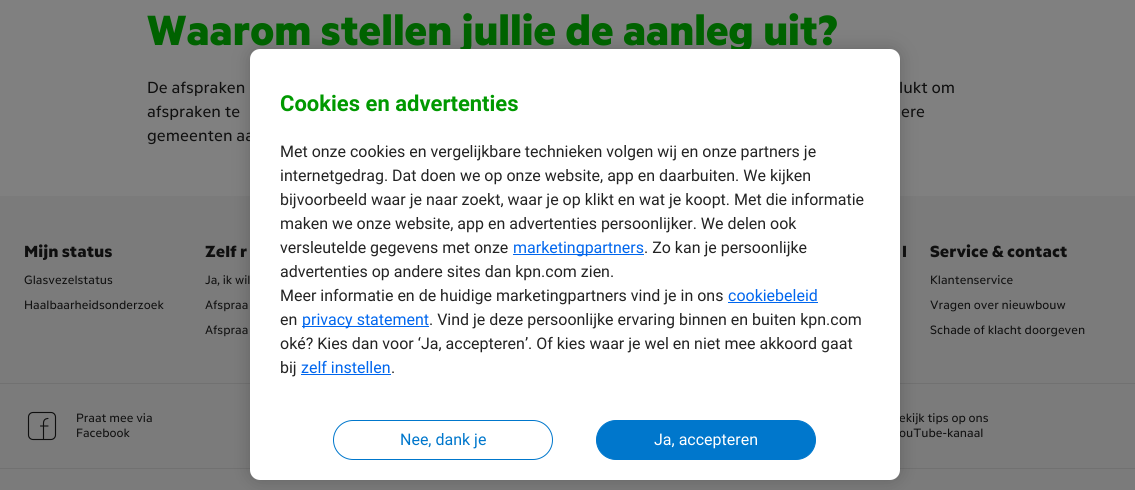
import math
import cairo

surface = cairo.ImageSurface(cairo.FORMAT_RGB24, 1135, 490)
cr = cairo.Context(surface)
options = cairo.FontOptions()
options.set_hint_metrics(cairo.HINT_METRICS_OFF)
options.set_hint_style(cairo.HINT_STYLE_NONE)
cr.set_font_options(options)
cr.set_miter_limit(4)


def rgb(code):
    cr.set_source_rgb(*(v / 255 for v in bytes.fromhex(code[-6:])))


def rrect(x, y, w, h, r):
    cr.new_sub_path()
    for i, (u, v) in enumerate([(x + w - r, y + h - r), (x + r, y + h - r), (x + r, y + r), (x + w - r, y + r)]):
        cr.arc(u, v, r, i * math.pi / 2, (i + 1) * math.pi / 2)
    cr.close_path()


def soft_shadow(x, y, w, h, r, blur, alpha):
    cr.push_group_with_content(cairo.CONTENT_ALPHA)
    cr.set_operator(cairo.OPERATOR_SOURCE)
    for i in range(15, -16, -2):
        e = blur * i / 6
        if min(w, h) + 2 * e > 0:
            cr.set_source_rgba(0, 0, 0, alpha * math.erfc((i - 1) / 8.5) / 2)
            rrect(x - e, y - e, w + 2 * e, h + 2 * e, max(0, min(r + e + blur * .6, min(w, h) / 2 + e)))
            cr.fill()
    cr.mask(cr.pop_group())


def image(path, x, y, w, h):
    cr.save()
    cr.set_source_surface(cairo.ImageSurface.create_from_png(path), x, y)
    cr.rectangle(x, y, w, h)
    cr.fill()
    cr.restore()


rgb("#808080")
cr.paint()
for x, y, w, h, color in [
    (0, 196, 1135, 294, "#7b7b7b"),
    (0, 383, 1135, 1, "#717171"),
    (0, 468, 1135, 1, "#717171"),
]:
    rgb(color)
    cr.rectangle(x, y, w, h)
    cr.fill()
image("img/1.png", 27, 411, 30, 30)
rgb("#000000")
soft_shadow(250, 49, 650, 431, 10, 9, 0.2)
cr.select_font_face("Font", cairo.FONT_SLANT_NORMAL, cairo.FONT_WEIGHT_BOLD)
cr.set_font_size(44)
rgb("#006200")
cr.move_to(147, 45)
cr.show_text("Waarom stellen jullie de aanleg uit?")
cr.select_font_face("Font")
cr.set_font_size(16)
rgb("#0f0f0f")
for x, y, s in [
    (147, 93, "De afspraken"),
    (899, 93, "lukt om"),
    (147, 117, "afspraken te"),
    (901, 117, "ere"),
    (147, 141, "gemeenten aa"),
]:
    cr.move_to(x, y)
    cr.show_text(s)
cr.select_font_face("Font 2", cairo.FONT_SLANT_NORMAL, cairo.FONT_WEIGHT_BOLD)
cr.move_to(24, 257)
cr.show_text("Mijn status")
cr.select_font_face("Font")
cr.set_font_size(12)
cr.move_to(24, 284)
cr.show_text("Glasvezelstatus")
cr.move_to(24, 309)
cr.show_text("Haalbaarheidsonderzoek")
cr.select_font_face("Font 2", cairo.FONT_SLANT_NORMAL, cairo.FONT_WEIGHT_BOLD)
cr.set_font_size(16)
cr.move_to(205, 257)
cr.show_text("Zelf r")
cr.select_font_face("Font")
cr.set_font_size(12)
for x, y, s in [
    (205, 284, "Ja, ik wil"),
    (205, 309, "Afspraa"),
    (205, 334, "Afspraa"),
]:
    cr.move_to(x, y)
    cr.show_text(s)
cr.select_font_face("Font 2", cairo.FONT_SLANT_NORMAL, cairo.FONT_WEIGHT_BOLD)
cr.set_font_size(16)
cr.move_to(902, 257)
cr.show_text("l")
cr.move_to(930, 257)
cr.show_text("Service & contact")
cr.select_font_face("Font")
cr.set_font_size(12)
for x, y, s in [
    (930, 284, "Klantenservice"),
    (930, 309, "Vragen over nieuwbouw"),
    (930, 334, "Schade of klacht doorgeven"),
    (76, 422, "Praat mee via"),
    (76, 437, "Facebook"),
    (899, 422, "ekijk tips op ons"),
    (899, 437, "ouTube-kanaal"),
]:
    cr.move_to(x, y)
    cr.show_text(s)
rgb("#ffffff")
rrect(250, 49, 650, 431, 10)
cr.fill()
cr.select_font_face("Roboto", cairo.FONT_SLANT_NORMAL, cairo.FONT_WEIGHT_BOLD)
cr.set_font_size(22)
rgb("#009900")
cr.move_to(280, 111)
cr.show_text("Cookies en advertenties")
cr.select_font_face("Roboto")
cr.set_font_size(16)
rgb("#232323")
for x, y, s in [
    (280, 157, "Met onze cookies en vergelijkbare technieken volgen wij en onze partners je"),
    (280, 181, "internetgedrag. Dat doen we op onze website, app en daarbuiten. We kijken"),
    (280, 205, "bijvoorbeeld waar je naar zoekt, waar je op klikt en wat je koopt. Met die informatie"),
    (280, 229, "maken we onze website, app en advertenties persoonlijker. We delen ook"),
    (280, 253, "versleutelde gegevens met onze"),
]:
    cr.move_to(x, y)
    cr.show_text(s)
rgb("#0066ee")
cr.rectangle(513, 254, 131, 1)
cr.fill()
cr.move_to(513, 253)
cr.show_text("marketingpartners")
rgb("#232323")
for x, y, s in [
    (644, 253, ". Zo kan je persoonlijke"),
    (280, 277, "advertenties op andere sites dan kpn.com zien."),
    (280, 301, "Meer informatie en de huidige marketingpartners vind je in ons"),
]:
    cr.move_to(x, y)
    cr.show_text(s)
rgb("#0066ee")
cr.move_to(728, 301)
cr.show_text("cookiebeleid")
cr.rectangle(728, 302, 90, 1)
cr.fill()
rgb("#232323")
cr.move_to(280, 325)
cr.show_text("en")
rgb("#0066ee")
cr.rectangle(302, 326, 127, 1)
cr.fill()
cr.move_to(302, 325)
cr.show_text("privacy statement")
rgb("#232323")
for x, y, s in [
    (429, 325, ". Vind je deze persoonlijke ervaring binnen en buiten kpn.com"),
    (280, 349, "oké? Kies dan voor ‘Ja, accepteren’. Of kies waar je wel en niet mee akkoord gaat"),
    (280, 373, "bij"),
]:
    cr.move_to(x, y)
    cr.show_text(s)
rgb("#0066ee")
cr.move_to(301, 373)
cr.show_text("zelf instellen")
cr.rectangle(301, 374, 90, 1)
cr.fill()
rgb("#232323")
cr.move_to(391, 373)
cr.show_text(".")
rrect(333.5, 420.5, 219, 39, 19.5)
rgb("#0077cc")
cr.set_line_width(1)
cr.stroke()
cr.move_to(400, 445)
cr.show_text("Nee, dank je")
rrect(596.5, 420.5, 219, 39, 19.5)
cr.fill_preserve()
cr.stroke()
rgb("#ffffff")
cr.move_to(654, 445)
cr.show_text("Ja, accepteren")
surface.write_to_png("page.png")
